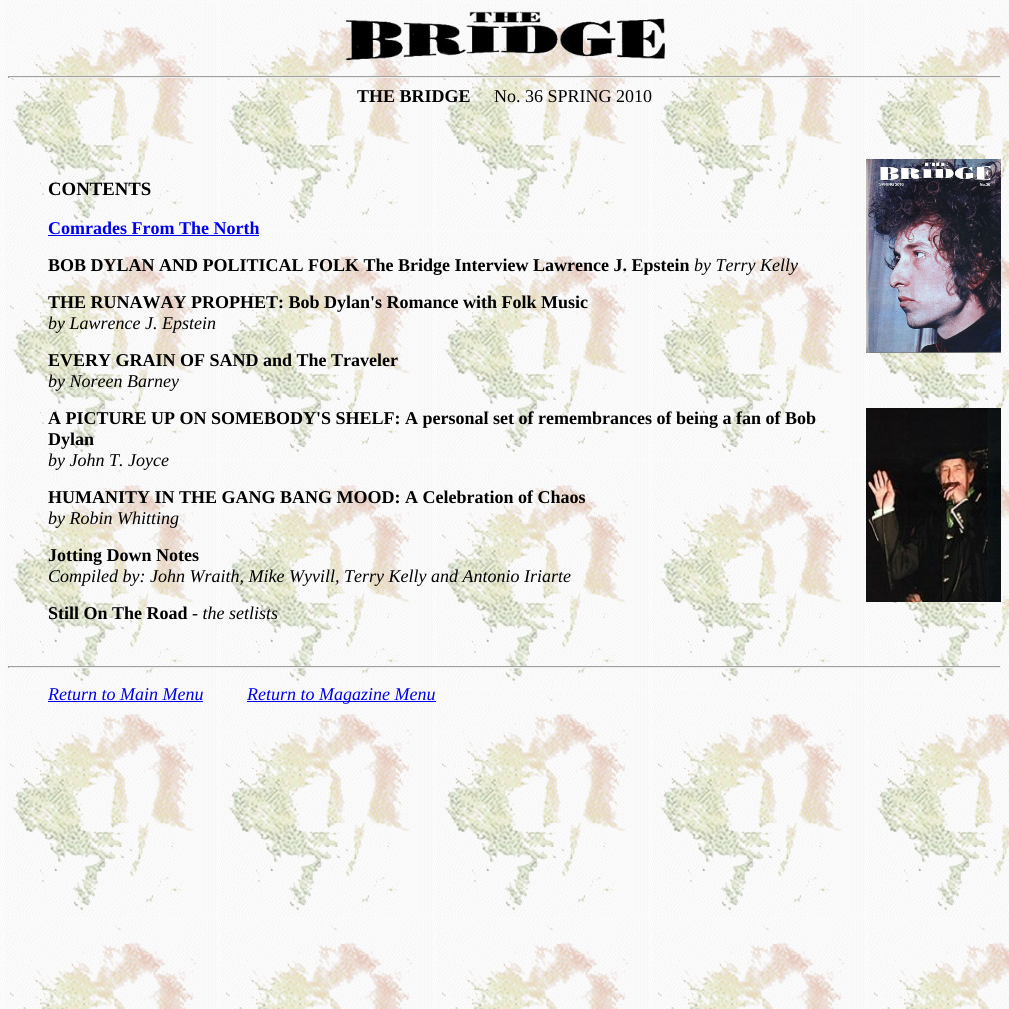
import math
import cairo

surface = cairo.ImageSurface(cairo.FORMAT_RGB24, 1009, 1009)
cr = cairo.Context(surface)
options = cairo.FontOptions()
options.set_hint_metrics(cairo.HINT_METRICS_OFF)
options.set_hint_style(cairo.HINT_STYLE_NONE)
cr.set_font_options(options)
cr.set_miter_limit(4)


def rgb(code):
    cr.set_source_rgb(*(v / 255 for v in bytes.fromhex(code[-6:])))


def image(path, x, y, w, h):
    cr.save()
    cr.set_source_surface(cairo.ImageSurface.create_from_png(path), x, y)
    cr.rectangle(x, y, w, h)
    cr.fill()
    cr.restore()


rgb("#ffffff")
cr.paint()
image("img/1.png", 0, 0, 1009, 1009)
image("img/2.png", 345, 11, 320, 50)
for x, y, w, h, color in [
    (8, 76, 993, 1, "#9f9f9f"),
    (1000, 76, 1, 2, "#eeeeee"),
    (8, 77, 993, 1, "#eeeeee"),
    (8, 76, 1, 2, "#9f9f9f"),
]:
    rgb(color)
    cr.rectangle(x, y, w, h)
    cr.fill()
image("img/3.png", 866, 159, 135, 194)
rgb("#0000ee")
cr.rectangle(48, 235, 211, 1)
cr.fill()
image("img/4.png", 866, 408, 135, 194)
for x, y, w, h, color in [
    (8, 666, 993, 1, "#9f9f9f"),
    (1000, 666, 1, 2, "#eeeeee"),
    (8, 667, 993, 1, "#eeeeee"),
    (8, 666, 1, 2, "#9f9f9f"),
    (48, 701, 155, 1, "#0000ee"),
    (247, 701, 189, 1, "#0000ee"),
]:
    rgb(color)
    cr.rectangle(x, y, w, h)
    cr.fill()
cr.select_font_face("Liberation Serif", cairo.FONT_SLANT_NORMAL, cairo.FONT_WEIGHT_BOLD)
cr.set_font_size(18)
rgb("#000000")
cr.move_to(357, 102)
cr.show_text("THE BRIDGE")
cr.select_font_face("Liberation Serif")
cr.move_to(494, 102)
cr.show_text("No. 36 SPRING 2010")
cr.select_font_face("Liberation Serif", cairo.FONT_SLANT_NORMAL, cairo.FONT_WEIGHT_BOLD)
cr.set_font_size(18.75)
cr.move_to(48, 195)
cr.show_text("CONTENTS")
cr.set_font_size(18)
rgb("#0000ee")
cr.move_to(48, 234)
cr.show_text("Comrades From The North")
rgb("#000000")
cr.move_to(48, 271)
cr.show_text("BOB DYLAN AND POLITICAL FOLK The Bridge Interview Lawrence J. Epstein")
cr.select_font_face("Liberation Serif", cairo.FONT_SLANT_ITALIC)
cr.move_to(694, 271)
cr.show_text("by Terry Kelly")
cr.select_font_face("Liberation Serif", cairo.FONT_SLANT_NORMAL, cairo.FONT_WEIGHT_BOLD)
cr.move_to(48, 308)
cr.show_text("THE RUNAWAY PROPHET: Bob Dylan's Romance with Folk Music")
cr.select_font_face("Liberation Serif", cairo.FONT_SLANT_ITALIC)
cr.move_to(48, 329)
cr.show_text("by Lawrence J. Epstein")
cr.select_font_face("Liberation Serif", cairo.FONT_SLANT_NORMAL, cairo.FONT_WEIGHT_BOLD)
cr.move_to(48, 366)
cr.show_text("EVERY GRAIN OF SAND and The Traveler")
cr.select_font_face("Liberation Serif", cairo.FONT_SLANT_ITALIC)
cr.move_to(48, 387)
cr.show_text("by Noreen Barney")
cr.select_font_face("Liberation Serif", cairo.FONT_SLANT_NORMAL, cairo.FONT_WEIGHT_BOLD)
cr.move_to(48, 424)
cr.show_text("A PICTURE UP ON SOMEBODY'S SHELF: A personal set of remembrances of being a fan of Bob")
cr.move_to(48, 445)
cr.show_text("Dylan")
cr.select_font_face("Liberation Serif", cairo.FONT_SLANT_ITALIC)
cr.move_to(48, 466)
cr.show_text("by John T. Joyce")
cr.select_font_face("Liberation Serif", cairo.FONT_SLANT_NORMAL, cairo.FONT_WEIGHT_BOLD)
cr.move_to(48, 503)
cr.show_text("HUMANITY IN THE GANG BANG MOOD: A Celebration of Chaos")
cr.select_font_face("Liberation Serif", cairo.FONT_SLANT_ITALIC)
cr.move_to(48, 524)
cr.show_text("by Robin Whitting")
cr.select_font_face("Liberation Serif", cairo.FONT_SLANT_NORMAL, cairo.FONT_WEIGHT_BOLD)
cr.move_to(48, 561)
cr.show_text("Jotting Down Notes")
cr.select_font_face("Liberation Serif", cairo.FONT_SLANT_ITALIC)
cr.move_to(48, 582)
cr.show_text("Compiled by: John Wraith, Mike Wyvill, Terry Kelly and Antonio Iriarte")
cr.select_font_face("Liberation Serif", cairo.FONT_SLANT_NORMAL, cairo.FONT_WEIGHT_BOLD)
cr.move_to(48, 619)
cr.show_text("Still On The Road")
cr.select_font_face("Liberation Serif", cairo.FONT_SLANT_ITALIC)
cr.move_to(192, 619)
cr.show_text("- the setlists")
rgb("#0000ee")
cr.move_to(48, 700)
cr.show_text("Return to Main Menu")
cr.move_to(247, 700)
cr.show_text("Return to Magazine Menu")
surface.write_to_png("page.png")
